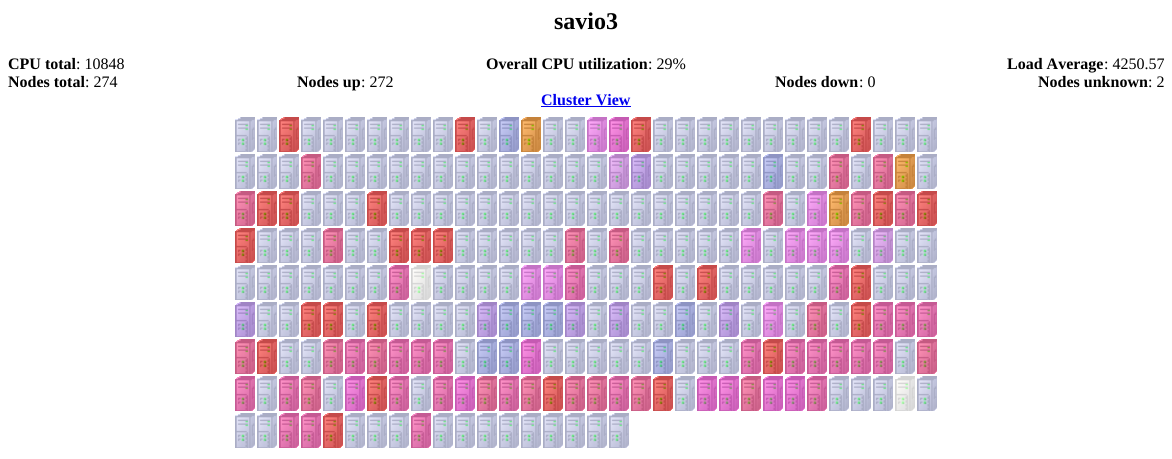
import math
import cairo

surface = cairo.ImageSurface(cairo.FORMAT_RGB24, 1172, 459)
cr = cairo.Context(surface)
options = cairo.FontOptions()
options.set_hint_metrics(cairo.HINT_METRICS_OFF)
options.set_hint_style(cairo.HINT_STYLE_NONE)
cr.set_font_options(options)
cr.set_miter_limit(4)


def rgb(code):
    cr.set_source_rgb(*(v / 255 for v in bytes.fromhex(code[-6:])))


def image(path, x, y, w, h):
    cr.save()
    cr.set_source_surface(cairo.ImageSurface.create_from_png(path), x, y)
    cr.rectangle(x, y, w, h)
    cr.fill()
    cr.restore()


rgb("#ffffff")
cr.paint()
rgb("#0000ee")
cr.rectangle(541, 106, 90, 1)
cr.fill()
image("img/1.png", 235, 117, 20, 35)
image("img/1.png", 257, 117, 20, 35)
image("img/2.png", 279, 117, 20, 35)
image("img/1.png", 301, 117, 20, 35)
image("img/1.png", 323, 117, 20, 35)
image("img/1.png", 345, 117, 20, 35)
image("img/1.png", 367, 117, 20, 35)
image("img/1.png", 389, 117, 20, 35)
image("img/1.png", 411, 117, 20, 35)
image("img/1.png", 433, 117, 20, 35)
image("img/2.png", 455, 117, 20, 35)
image("img/1.png", 477, 117, 20, 35)
image("img/3.png", 499, 117, 20, 35)
image("img/4.png", 521, 117, 20, 35)
image("img/1.png", 543, 117, 20, 35)
image("img/1.png", 565, 117, 20, 35)
image("img/5.png", 587, 117, 20, 35)
image("img/6.png", 609, 117, 20, 35)
image("img/2.png", 631, 117, 20, 35)
image("img/1.png", 653, 117, 20, 35)
image("img/1.png", 675, 117, 20, 35)
image("img/1.png", 697, 117, 20, 35)
image("img/1.png", 719, 117, 20, 35)
image("img/1.png", 741, 117, 20, 35)
image("img/1.png", 763, 117, 20, 35)
image("img/1.png", 785, 117, 20, 35)
image("img/1.png", 807, 117, 20, 35)
image("img/1.png", 829, 117, 20, 35)
image("img/2.png", 851, 117, 20, 35)
image("img/1.png", 873, 117, 20, 35)
image("img/1.png", 895, 117, 20, 35)
image("img/1.png", 917, 117, 20, 35)
image("img/1.png", 235, 154, 20, 35)
image("img/1.png", 257, 154, 20, 35)
image("img/1.png", 279, 154, 20, 35)
image("img/7.png", 301, 154, 20, 35)
image("img/1.png", 323, 154, 20, 35)
image("img/1.png", 345, 154, 20, 35)
image("img/1.png", 367, 154, 20, 35)
image("img/1.png", 389, 154, 20, 35)
image("img/1.png", 411, 154, 20, 35)
image("img/1.png", 433, 154, 20, 35)
image("img/1.png", 455, 154, 20, 35)
image("img/1.png", 477, 154, 20, 35)
image("img/1.png", 499, 154, 20, 35)
image("img/1.png", 521, 154, 20, 35)
image("img/1.png", 543, 154, 20, 35)
image("img/1.png", 565, 154, 20, 35)
image("img/1.png", 587, 154, 20, 35)
image("img/8.png", 609, 154, 20, 35)
image("img/9.png", 631, 154, 20, 35)
image("img/1.png", 653, 154, 20, 35)
image("img/1.png", 675, 154, 20, 35)
image("img/1.png", 697, 154, 20, 35)
image("img/1.png", 719, 154, 20, 35)
image("img/1.png", 741, 154, 20, 35)
image("img/3.png", 763, 154, 20, 35)
image("img/1.png", 785, 154, 20, 35)
image("img/1.png", 807, 154, 20, 35)
image("img/7.png", 829, 154, 20, 35)
image("img/1.png", 851, 154, 20, 35)
image("img/7.png", 873, 154, 20, 35)
image("img/4.png", 895, 154, 20, 35)
image("img/1.png", 917, 154, 20, 35)
image("img/7.png", 235, 191, 20, 35)
image("img/2.png", 257, 191, 20, 35)
image("img/2.png", 279, 191, 20, 35)
image("img/1.png", 301, 191, 20, 35)
image("img/1.png", 323, 191, 20, 35)
image("img/1.png", 345, 191, 20, 35)
image("img/2.png", 367, 191, 20, 35)
image("img/1.png", 389, 191, 20, 35)
image("img/1.png", 411, 191, 20, 35)
image("img/1.png", 433, 191, 20, 35)
image("img/1.png", 455, 191, 20, 35)
image("img/1.png", 477, 191, 20, 35)
image("img/1.png", 499, 191, 20, 35)
image("img/1.png", 521, 191, 20, 35)
image("img/1.png", 543, 191, 20, 35)
image("img/1.png", 565, 191, 20, 35)
image("img/1.png", 587, 191, 20, 35)
image("img/1.png", 609, 191, 20, 35)
image("img/1.png", 631, 191, 20, 35)
image("img/1.png", 653, 191, 20, 35)
image("img/1.png", 675, 191, 20, 35)
image("img/1.png", 697, 191, 20, 35)
image("img/1.png", 719, 191, 20, 35)
image("img/1.png", 741, 191, 20, 35)
image("img/7.png", 763, 191, 20, 35)
image("img/1.png", 785, 191, 20, 35)
image("img/5.png", 807, 191, 20, 35)
image("img/4.png", 829, 191, 20, 35)
image("img/7.png", 851, 191, 20, 35)
image("img/2.png", 873, 191, 20, 35)
image("img/7.png", 895, 191, 20, 35)
image("img/2.png", 917, 191, 20, 35)
image("img/2.png", 235, 228, 20, 35)
image("img/1.png", 257, 228, 20, 35)
image("img/1.png", 279, 228, 20, 35)
image("img/1.png", 301, 228, 20, 35)
image("img/7.png", 323, 228, 20, 35)
image("img/1.png", 345, 228, 20, 35)
image("img/1.png", 367, 228, 20, 35)
image("img/2.png", 389, 228, 20, 35)
image("img/2.png", 411, 228, 20, 35)
image("img/2.png", 433, 228, 20, 35)
image("img/1.png", 455, 228, 20, 35)
image("img/1.png", 477, 228, 20, 35)
image("img/1.png", 499, 228, 20, 35)
image("img/1.png", 521, 228, 20, 35)
image("img/1.png", 543, 228, 20, 35)
image("img/7.png", 565, 228, 20, 35)
image("img/1.png", 587, 228, 20, 35)
image("img/7.png", 609, 228, 20, 35)
image("img/1.png", 631, 228, 20, 35)
image("img/1.png", 653, 228, 20, 35)
image("img/1.png", 675, 228, 20, 35)
image("img/1.png", 697, 228, 20, 35)
image("img/1.png", 719, 228, 20, 35)
image("img/5.png", 741, 228, 20, 35)
image("img/1.png", 763, 228, 20, 35)
image("img/5.png", 785, 228, 20, 35)
image("img/5.png", 807, 228, 20, 35)
image("img/5.png", 829, 228, 20, 35)
image("img/1.png", 851, 228, 20, 35)
image("img/8.png", 873, 228, 20, 35)
image("img/1.png", 895, 228, 20, 35)
image("img/1.png", 917, 228, 20, 35)
image("img/1.png", 235, 265, 20, 35)
image("img/1.png", 257, 265, 20, 35)
image("img/1.png", 279, 265, 20, 35)
image("img/1.png", 301, 265, 20, 35)
image("img/1.png", 323, 265, 20, 35)
image("img/1.png", 345, 265, 20, 35)
image("img/1.png", 367, 265, 20, 35)
image("img/10.png", 389, 265, 20, 35)
image("img/11.png", 411, 265, 20, 35)
image("img/1.png", 433, 265, 20, 35)
image("img/1.png", 455, 265, 20, 35)
image("img/1.png", 477, 265, 20, 35)
image("img/1.png", 499, 265, 20, 35)
image("img/5.png", 521, 265, 20, 35)
image("img/5.png", 543, 265, 20, 35)
image("img/10.png", 565, 265, 20, 35)
image("img/1.png", 587, 265, 20, 35)
image("img/1.png", 609, 265, 20, 35)
image("img/1.png", 631, 265, 20, 35)
image("img/2.png", 653, 265, 20, 35)
image("img/1.png", 675, 265, 20, 35)
image("img/2.png", 697, 265, 20, 35)
image("img/1.png", 719, 265, 20, 35)
image("img/1.png", 741, 265, 20, 35)
image("img/1.png", 763, 265, 20, 35)
image("img/1.png", 785, 265, 20, 35)
image("img/1.png", 807, 265, 20, 35)
image("img/10.png", 829, 265, 20, 35)
image("img/2.png", 851, 265, 20, 35)
image("img/1.png", 873, 265, 20, 35)
image("img/1.png", 895, 265, 20, 35)
image("img/1.png", 917, 265, 20, 35)
image("img/9.png", 235, 302, 20, 35)
image("img/1.png", 257, 302, 20, 35)
image("img/1.png", 279, 302, 20, 35)
image("img/2.png", 301, 302, 20, 35)
image("img/2.png", 323, 302, 20, 35)
image("img/1.png", 345, 302, 20, 35)
image("img/2.png", 367, 302, 20, 35)
image("img/1.png", 389, 302, 20, 35)
image("img/1.png", 411, 302, 20, 35)
image("img/1.png", 433, 302, 20, 35)
image("img/1.png", 455, 302, 20, 35)
image("img/9.png", 477, 302, 20, 35)
image("img/3.png", 499, 302, 20, 35)
image("img/3.png", 521, 302, 20, 35)
image("img/3.png", 543, 302, 20, 35)
image("img/9.png", 565, 302, 20, 35)
image("img/1.png", 587, 302, 20, 35)
image("img/9.png", 609, 302, 20, 35)
image("img/1.png", 631, 302, 20, 35)
image("img/1.png", 653, 302, 20, 35)
image("img/3.png", 675, 302, 20, 35)
image("img/1.png", 697, 302, 20, 35)
image("img/9.png", 719, 302, 20, 35)
image("img/1.png", 741, 302, 20, 35)
image("img/5.png", 763, 302, 20, 35)
image("img/1.png", 785, 302, 20, 35)
image("img/7.png", 807, 302, 20, 35)
image("img/1.png", 829, 302, 20, 35)
image("img/2.png", 851, 302, 20, 35)
image("img/10.png", 873, 302, 20, 35)
image("img/10.png", 895, 302, 20, 35)
image("img/10.png", 917, 302, 20, 35)
image("img/7.png", 235, 339, 20, 35)
image("img/2.png", 257, 339, 20, 35)
image("img/1.png", 279, 339, 20, 35)
image("img/1.png", 301, 339, 20, 35)
image("img/7.png", 323, 339, 20, 35)
image("img/10.png", 345, 339, 20, 35)
image("img/7.png", 367, 339, 20, 35)
image("img/10.png", 389, 339, 20, 35)
image("img/10.png", 411, 339, 20, 35)
image("img/10.png", 433, 339, 20, 35)
image("img/1.png", 455, 339, 20, 35)
image("img/3.png", 477, 339, 20, 35)
image("img/3.png", 499, 339, 20, 35)
image("img/6.png", 521, 339, 20, 35)
image("img/1.png", 543, 339, 20, 35)
image("img/1.png", 565, 339, 20, 35)
image("img/1.png", 587, 339, 20, 35)
image("img/1.png", 609, 339, 20, 35)
image("img/1.png", 631, 339, 20, 35)
image("img/3.png", 653, 339, 20, 35)
image("img/1.png", 675, 339, 20, 35)
image("img/1.png", 697, 339, 20, 35)
image("img/1.png", 719, 339, 20, 35)
image("img/10.png", 741, 339, 20, 35)
image("img/2.png", 763, 339, 20, 35)
image("img/10.png", 785, 339, 20, 35)
image("img/10.png", 807, 339, 20, 35)
image("img/10.png", 829, 339, 20, 35)
image("img/10.png", 851, 339, 20, 35)
image("img/10.png", 873, 339, 20, 35)
image("img/1.png", 895, 339, 20, 35)
image("img/7.png", 917, 339, 20, 35)
image("img/10.png", 235, 376, 20, 35)
image("img/1.png", 257, 376, 20, 35)
image("img/10.png", 279, 376, 20, 35)
image("img/7.png", 301, 376, 20, 35)
image("img/1.png", 323, 376, 20, 35)
image("img/6.png", 345, 376, 20, 35)
image("img/2.png", 367, 376, 20, 35)
image("img/10.png", 389, 376, 20, 35)
image("img/1.png", 411, 376, 20, 35)
image("img/10.png", 433, 376, 20, 35)
image("img/6.png", 455, 376, 20, 35)
image("img/7.png", 477, 376, 20, 35)
image("img/10.png", 499, 376, 20, 35)
image("img/7.png", 521, 376, 20, 35)
image("img/2.png", 543, 376, 20, 35)
image("img/7.png", 565, 376, 20, 35)
image("img/7.png", 587, 376, 20, 35)
image("img/10.png", 609, 376, 20, 35)
image("img/7.png", 631, 376, 20, 35)
image("img/2.png", 653, 376, 20, 35)
image("img/1.png", 675, 376, 20, 35)
image("img/6.png", 697, 376, 20, 35)
image("img/6.png", 719, 376, 20, 35)
image("img/7.png", 741, 376, 20, 35)
image("img/6.png", 763, 376, 20, 35)
image("img/6.png", 785, 376, 20, 35)
image("img/10.png", 807, 376, 20, 35)
image("img/1.png", 829, 376, 20, 35)
image("img/1.png", 851, 376, 20, 35)
image("img/1.png", 873, 376, 20, 35)
image("img/11.png", 895, 376, 20, 35)
image("img/1.png", 917, 376, 20, 35)
image("img/1.png", 235, 413, 20, 35)
image("img/1.png", 257, 413, 20, 35)
image("img/10.png", 279, 413, 20, 35)
image("img/10.png", 301, 413, 20, 35)
image("img/2.png", 323, 413, 20, 35)
image("img/1.png", 345, 413, 20, 35)
image("img/1.png", 367, 413, 20, 35)
image("img/1.png", 389, 413, 20, 35)
image("img/10.png", 411, 413, 20, 35)
image("img/1.png", 433, 413, 20, 35)
image("img/1.png", 455, 413, 20, 35)
image("img/1.png", 477, 413, 20, 35)
image("img/1.png", 499, 413, 20, 35)
image("img/1.png", 521, 413, 20, 35)
image("img/1.png", 543, 413, 20, 35)
image("img/1.png", 565, 413, 20, 35)
image("img/1.png", 587, 413, 20, 35)
image("img/1.png", 609, 413, 20, 35)
cr.select_font_face("Liberation Serif", cairo.FONT_SLANT_NORMAL, cairo.FONT_WEIGHT_BOLD)
cr.set_font_size(24)
rgb("#000000")
cr.move_to(554, 29)
cr.show_text("savio3")
cr.set_font_size(16)
cr.move_to(8, 69)
cr.show_text("CPU total")
cr.select_font_face("Liberation Serif")
cr.move_to(76, 69)
cr.show_text(": 10848")
cr.select_font_face("Liberation Serif", cairo.FONT_SLANT_NORMAL, cairo.FONT_WEIGHT_BOLD)
cr.move_to(486, 69)
cr.show_text("Overall CPU utilization")
cr.select_font_face("Liberation Serif")
cr.move_to(648, 69)
cr.show_text(": 29%")
cr.select_font_face("Liberation Serif", cairo.FONT_SLANT_NORMAL, cairo.FONT_WEIGHT_BOLD)
cr.move_to(1007, 69)
cr.show_text("Load Average")
cr.select_font_face("Liberation Serif")
cr.move_to(1104, 69)
cr.show_text(": 4250.57")
cr.select_font_face("Liberation Serif", cairo.FONT_SLANT_NORMAL, cairo.FONT_WEIGHT_BOLD)
cr.move_to(8, 87)
cr.show_text("Nodes total")
cr.select_font_face("Liberation Serif")
cr.move_to(85, 87)
cr.show_text(": 274")
cr.select_font_face("Liberation Serif", cairo.FONT_SLANT_NORMAL, cairo.FONT_WEIGHT_BOLD)
cr.move_to(297, 87)
cr.show_text("Nodes up")
cr.select_font_face("Liberation Serif")
cr.move_to(361, 87)
cr.show_text(": 272")
cr.select_font_face("Liberation Serif", cairo.FONT_SLANT_NORMAL, cairo.FONT_WEIGHT_BOLD)
cr.move_to(775, 87)
cr.show_text("Nodes down")
cr.select_font_face("Liberation Serif")
cr.move_to(859, 87)
cr.show_text(": 0")
cr.select_font_face("Liberation Serif", cairo.FONT_SLANT_NORMAL, cairo.FONT_WEIGHT_BOLD)
cr.move_to(1038, 87)
cr.show_text("Nodes unknown")
cr.select_font_face("Liberation Serif")
cr.move_to(1148, 87)
cr.show_text(": 2")
cr.select_font_face("Liberation Serif", cairo.FONT_SLANT_NORMAL, cairo.FONT_WEIGHT_BOLD)
rgb("#0000ee")
cr.move_to(541, 105)
cr.show_text("Cluster View")
surface.write_to_png("page.png")
